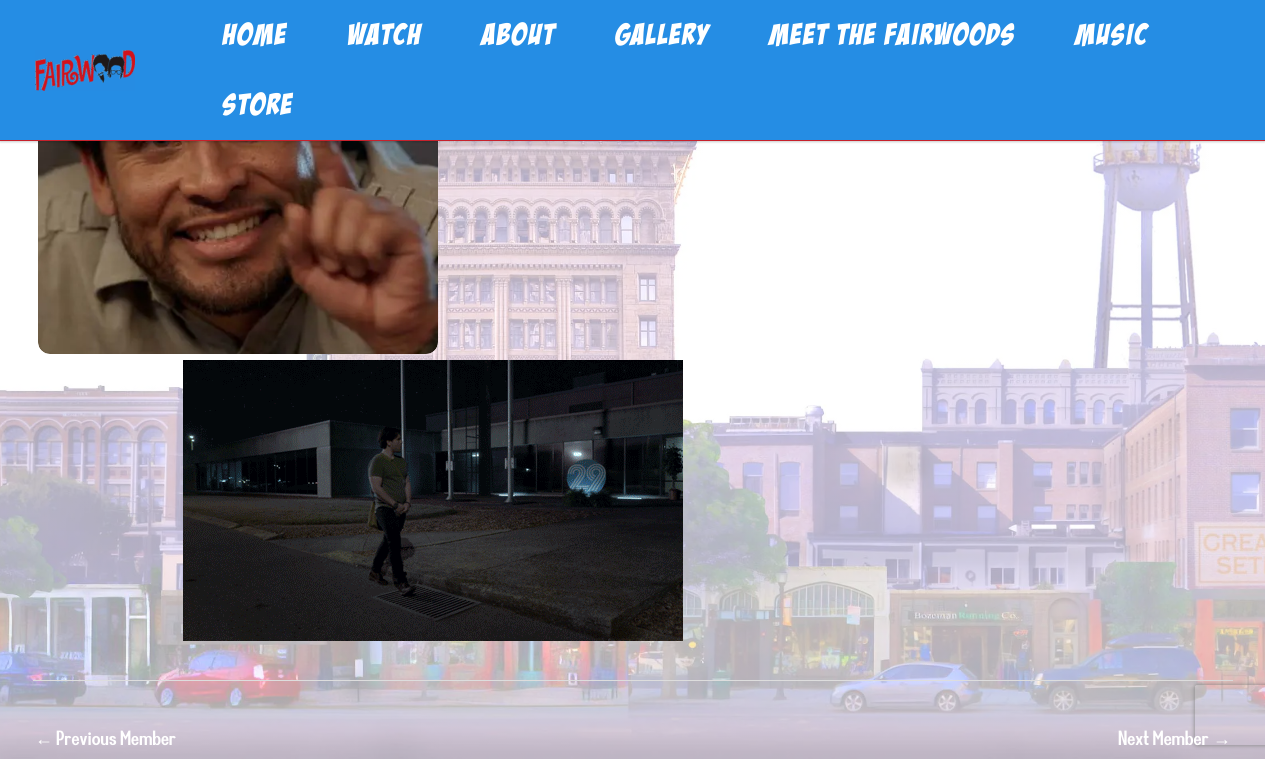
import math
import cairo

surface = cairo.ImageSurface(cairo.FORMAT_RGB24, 1265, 759)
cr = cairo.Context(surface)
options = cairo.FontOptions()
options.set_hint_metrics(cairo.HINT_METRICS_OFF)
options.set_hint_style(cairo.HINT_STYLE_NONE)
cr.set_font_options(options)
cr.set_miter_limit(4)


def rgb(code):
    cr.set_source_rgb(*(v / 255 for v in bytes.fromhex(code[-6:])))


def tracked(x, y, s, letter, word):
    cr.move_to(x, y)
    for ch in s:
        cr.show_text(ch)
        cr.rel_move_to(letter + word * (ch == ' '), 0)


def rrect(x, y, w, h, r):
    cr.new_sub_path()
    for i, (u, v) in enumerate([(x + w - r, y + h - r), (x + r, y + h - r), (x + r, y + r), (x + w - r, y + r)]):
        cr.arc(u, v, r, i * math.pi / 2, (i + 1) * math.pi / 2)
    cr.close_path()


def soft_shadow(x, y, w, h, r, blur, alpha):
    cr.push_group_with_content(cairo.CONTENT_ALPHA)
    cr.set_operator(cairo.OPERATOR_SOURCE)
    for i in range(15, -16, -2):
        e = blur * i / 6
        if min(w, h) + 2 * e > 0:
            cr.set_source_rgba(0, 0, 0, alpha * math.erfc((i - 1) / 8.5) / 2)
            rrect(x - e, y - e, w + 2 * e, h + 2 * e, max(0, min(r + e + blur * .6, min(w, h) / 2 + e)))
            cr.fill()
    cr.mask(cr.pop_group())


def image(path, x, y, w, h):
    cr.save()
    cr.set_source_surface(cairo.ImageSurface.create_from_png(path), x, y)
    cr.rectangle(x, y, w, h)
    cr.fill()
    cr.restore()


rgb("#ffffff")
cr.paint()
image("img/1.png", 0, 141, 1265, 618)
image("img/3.png", 38, 141, 400, 213)
rgb("#000000")
soft_shadow(0, 1, 1265, 141, 0, 1, 0.2)
rgb("#258de4")
cr.rectangle(0, 0, 1265, 140)
cr.fill()
rgb("#c7212c")
cr.rectangle(0, 140, 1265, 1)
cr.fill()
image("img/2.png", 35, 50, 100, 41)
rgb("#dddddd")
cr.rectangle(33, 680, 1200, 1)
cr.fill()
cr.save()
cr.set_fill_rule(cairo.FILL_RULE_EVEN_ODD)
cr.new_path()
cr.move_to(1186, 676)
cr.line_to(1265, 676)
cr.line_to(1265, 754)
cr.line_to(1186, 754)
cr.close_path()
cr.move_to(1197, 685)
cr.line_to(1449, 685)
cr.curve_to(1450, 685, 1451, 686, 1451, 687)
cr.line_to(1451, 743)
cr.curve_to(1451, 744, 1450, 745, 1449, 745)
cr.line_to(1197, 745)
cr.curve_to(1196, 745, 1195, 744, 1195, 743)
cr.line_to(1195, 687)
cr.curve_to(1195, 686, 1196, 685, 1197, 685)
cr.close_path()
cr.clip()
rgb("#808080")
soft_shadow(1195, 685, 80, 60, 2, 2.5, 1)
cr.restore()
image("img/4.png", 183, 360, 500, 281)
cr.select_font_face("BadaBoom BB")
cr.set_font_size(30)
rgb("#ffffff")
for x, y, s in [
    (223, 45, "HOME"),
    (348, 45, "WATCH"),
    (483, 45, "ABOUT"),
    (616, 45, "GALLERY"),
    (770, 45, "MEET THE FAIRWOODS"),
    (1076, 45, "MUSIC"),
    (223, 115, "STORE"),
]:
    tracked(x, y, s, 2, 0)
cr.select_font_face("Liberation Serif")
cr.set_font_size(18)
cr.move_to(35, 745)
cr.show_text("←")
cr.select_font_face("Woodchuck")
cr.move_to(56, 745)
cr.show_text("Previous Member")
cr.move_to(1118, 745)
cr.show_text("Next Member")
cr.select_font_face("Liberation Serif")
cr.move_to(1213, 745)
cr.show_text("→")
surface.write_to_png("page.png")
